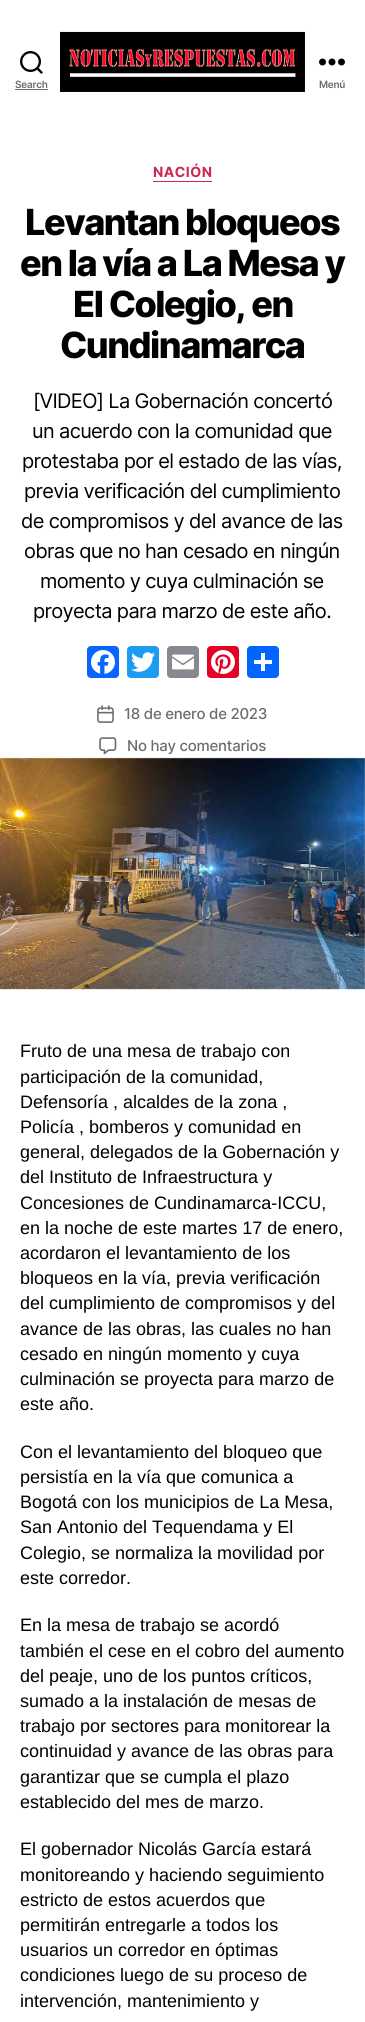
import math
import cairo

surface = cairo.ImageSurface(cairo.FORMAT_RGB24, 365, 2022)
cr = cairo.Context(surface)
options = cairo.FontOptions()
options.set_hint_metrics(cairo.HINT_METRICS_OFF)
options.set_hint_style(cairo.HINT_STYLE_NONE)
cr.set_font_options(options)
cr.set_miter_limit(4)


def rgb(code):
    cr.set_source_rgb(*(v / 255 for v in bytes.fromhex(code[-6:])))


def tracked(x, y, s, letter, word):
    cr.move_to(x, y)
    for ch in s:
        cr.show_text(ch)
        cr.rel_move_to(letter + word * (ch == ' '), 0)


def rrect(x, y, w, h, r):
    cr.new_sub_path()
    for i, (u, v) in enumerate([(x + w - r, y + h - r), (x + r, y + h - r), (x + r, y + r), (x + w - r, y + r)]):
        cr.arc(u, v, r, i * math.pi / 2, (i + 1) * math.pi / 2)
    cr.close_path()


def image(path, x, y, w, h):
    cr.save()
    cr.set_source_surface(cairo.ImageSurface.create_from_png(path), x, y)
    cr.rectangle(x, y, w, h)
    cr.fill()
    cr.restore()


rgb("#ffffff")
cr.paint()
image("img/1.png", 20, 51, 23, 23)
rgb("#6d6d6d")
cr.rectangle(15, 89, 33, 1)
cr.fill()
image("img/2.png", 60, 31, 245, 61)
image("img/3.png", 319, 58, 26, 8)
rgb("#cd2653")
cr.rectangle(153, 181, 59, 1)
cr.fill()
rgb("#0866ff")
rrect(87, 646, 32, 32, 4)
cr.fill()
image("img/4.png", 91, 650, 24, 24)
rgb("#1d9bf0")
rrect(127, 646, 32, 32, 4)
cr.fill()
image("img/5.png", 131, 652, 24, 20)
rgb("#888990")
rrect(167, 646, 32, 32, 4)
cr.fill()
image("img/6.png", 172, 654, 22, 16)
rgb("#e60023")
rrect(207, 646, 32, 32, 4)
cr.fill()
image("img/7.png", 211, 650, 24, 24)
rgb("#0166ff")
rrect(247, 646, 32, 32, 4)
cr.fill()
rgb("#ffffff")
cr.rectangle(261, 653, 4, 18)
cr.fill()
cr.rectangle(254, 660, 18, 4)
cr.fill()
image("img/8.png", 97, 705, 17, 18)
image("img/9.png", 99, 737, 18, 18)
image("img/10.png", 0, 757, 365, 233)
cr.select_font_face("Inter SemiBold")
cr.set_font_size(10)
rgb("#6d6d6d")
tracked(15, 88, "Search", -0.25, 0)
tracked(319, 88, "Menú", -0.25, 0)
cr.select_font_face("Inter", cairo.FONT_SLANT_NORMAL, cairo.FONT_WEIGHT_BOLD)
cr.set_font_size(14)
rgb("#cd2653")
tracked(153, 177, "NACIÓN", 0.5, 0)
cr.select_font_face("Inter ExtraBold")
cr.set_font_size(36)
rgb("#000000")
for x, y, s in [
    (25, 235, "Levantan bloqueos"),
    (20, 276, "en la vía a La Mesa y"),
    (73, 317, "El Colegio, en"),
    (60, 358, "Cundinamarca"),
]:
    tracked(x, y, s, -1.5, 0)
cr.select_font_face("Inter")
cr.set_font_size(20)
for x, y, s in [
    (33, 408, "[VIDEO] La Gobernación concertó"),
    (32, 438, "un acuerdo con la comunidad que"),
    (22, 468, "protestaba por el estado de las vías,"),
    (24, 498, "previa verificación del cumplimiento"),
    (21, 528, "de compromisos y del avance de las"),
    (24, 558, "obras que no han cesado en ningún"),
    (40, 588, "momento y cuya culminación se"),
    (33, 618, "proyecta para marzo de este año."),
]:
    tracked(x, y, s, -0.65, 0)
cr.select_font_face("Inter Medium")
cr.set_font_size(15)
rgb("#6d6d6d")
tracked(124, 719, "18 de enero de 2023", -0.25, 0)
tracked(127, 751, "No hay comentarios", -0.25, 0)
cr.select_font_face("Liberation Sans")
cr.set_font_size(18)
rgb("#000000")
for x, y, s in [
    (20, 1057, "Fruto de una mesa de trabajo con"),
    (20, 1083, "participación de la comunidad,"),
    (20, 1108, "Defensoría , alcaldes de la zona ,"),
    (20, 1133, "Policía , bomberos y comunidad en"),
    (20, 1158, "general, delegados de la Gobernación y"),
    (20, 1183, "del Instituto de Infraestructura y"),
    (20, 1209, "Concesiones de Cundinamarca-ICCU,"),
    (20, 1234, "en la noche de este martes 17 de enero,"),
    (20, 1259, "acordaron el levantamiento de los"),
    (20, 1284, "bloqueos en la vía, previa verificación"),
    (20, 1309, "del cumplimiento de compromisos y del"),
    (20, 1335, "avance de las obras, las cuales no han"),
    (20, 1360, "cesado en ningún momento y cuya"),
    (20, 1385, "culminación se proyecta para marzo de"),
    (20, 1410, "este año."),
    (20, 1458, "Con el levantamiento del bloqueo que"),
    (20, 1483, "persistía en la vía que comunica a"),
    (20, 1508, "Bogotá con los municipios de La Mesa,"),
    (20, 1533, "San Antonio del Tequendama y El"),
    (20, 1559, "Colegio, se normaliza la movilidad por"),
    (20, 1584, "este corredor."),
    (20, 1631, "En la mesa de trabajo se acordó"),
    (20, 1657, "también el cese en el cobro del aumento"),
    (20, 1682, "del peaje, uno de los puntos críticos,"),
    (20, 1707, "sumado a la instalación de mesas de"),
    (20, 1732, "trabajo por sectores para monitorear la"),
    (20, 1757, "continuidad y avance de las obras para"),
    (20, 1783, "garantizar que se cumpla el plazo"),
    (20, 1808, "establecido del mes de marzo."),
    (20, 1855, "El gobernador Nicolás García estará"),
    (20, 1881, "monitoreando y haciendo seguimiento"),
    (20, 1906, "estricto de estos acuerdos que"),
    (20, 1931, "permitirán entregarle a todos los"),
    (20, 1956, "usuarios un corredor en óptimas"),
    (20, 1981, "condiciones luego de su proceso de"),
    (20, 2007, "intervención, mantenimiento y"),
]:
    cr.move_to(x, y)
    cr.show_text(s)
surface.write_to_png("page.png")
